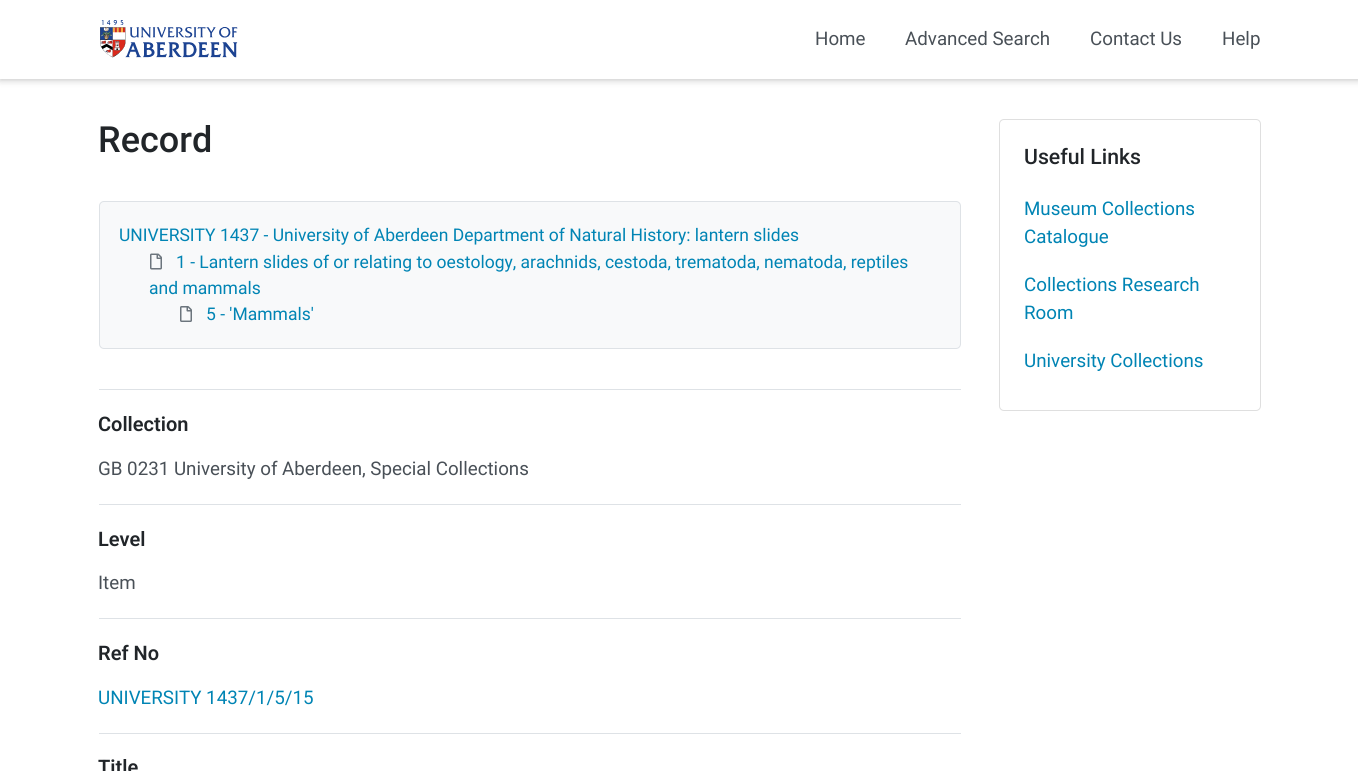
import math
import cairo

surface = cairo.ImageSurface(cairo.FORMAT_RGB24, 1358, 771)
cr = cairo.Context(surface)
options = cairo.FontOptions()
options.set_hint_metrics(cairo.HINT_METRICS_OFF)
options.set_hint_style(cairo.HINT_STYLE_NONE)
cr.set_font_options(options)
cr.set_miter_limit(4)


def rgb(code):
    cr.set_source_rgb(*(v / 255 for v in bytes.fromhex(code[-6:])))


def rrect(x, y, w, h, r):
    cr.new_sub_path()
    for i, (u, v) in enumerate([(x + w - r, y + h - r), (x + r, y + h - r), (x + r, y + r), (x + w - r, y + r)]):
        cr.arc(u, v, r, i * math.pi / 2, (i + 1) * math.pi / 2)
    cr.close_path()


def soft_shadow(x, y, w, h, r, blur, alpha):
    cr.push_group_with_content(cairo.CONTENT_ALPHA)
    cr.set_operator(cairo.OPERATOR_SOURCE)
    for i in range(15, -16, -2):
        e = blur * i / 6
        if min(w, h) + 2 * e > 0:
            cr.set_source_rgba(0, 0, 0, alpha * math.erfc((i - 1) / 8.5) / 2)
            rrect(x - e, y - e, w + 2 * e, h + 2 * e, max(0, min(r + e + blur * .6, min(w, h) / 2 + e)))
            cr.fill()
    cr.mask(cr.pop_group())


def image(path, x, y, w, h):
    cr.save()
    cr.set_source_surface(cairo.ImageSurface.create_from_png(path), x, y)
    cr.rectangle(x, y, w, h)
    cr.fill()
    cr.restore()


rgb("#ffffff")
cr.paint()
rgb("#000000")
soft_shadow(0, 0, 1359, 79, 0, 4, 0.3)
rgb("#ffffff")
cr.rectangle(0, 0, 1358, 79)
cr.fill()
image("img/1.png", 100, 20, 138, 38)
rgb("#f8f9fa")
rrect(99.5, 201.5, 861, 147, 4.5)
cr.fill_preserve()
rgb("#dee2e6")
cr.set_line_width(1)
cr.stroke()
image("img/2.png", 150, 253, 12, 17)
image("img/3.png", 180, 306, 12, 16)
for x, y, w, h, color in [
    (99, 389, 862, 1, "#dee2e6"),
    (99, 504, 862, 1, "#dee2e6"),
    (99, 618, 862, 1, "#dee2e6"),
    (99, 733, 862, 1, "#dee2e6"),
]:
    rgb(color)
    cr.rectangle(x, y, w, h)
    cr.fill()
rrect(999.5, 119.5, 261, 291, 4.5)
rgb("#dfdfdf")
cr.stroke()
cr.select_font_face("Roboto")
cr.set_font_size(18.75)
rgb("#495057")
for x, y, s in [
    (815, 45, "Home"),
    (905, 45, "Advanced Search"),
    (1090, 45, "Contact Us"),
    (1222, 45, "Help"),
]:
    cr.move_to(x, y)
    cr.show_text(s)
cr.select_font_face("Roboto Medium")
cr.set_font_size(36)
rgb("#212529")
cr.move_to(98, 152)
cr.show_text("Record")
cr.select_font_face("Roboto")
cr.set_font_size(17.5)
rgb("#0084b4")
for x, y, s in [
    (119, 241, "UNIVERSITY 1437 - University of Aberdeen Department of Natural History: lantern slides"),
    (176, 268, "1 - Lantern slides of or relating to oestology, arachnids, cestoda, trematoda, nematoda, reptiles"),
    (149, 294, "and mammals"),
    (206, 320, "5 - 'Mammals'"),
]:
    cr.move_to(x, y)
    cr.show_text(s)
cr.select_font_face("Roboto SemiBold")
cr.set_font_size(20)
rgb("#212529")
cr.move_to(98, 431)
cr.show_text("Collection")
cr.select_font_face("Roboto")
cr.set_font_size(18.75)
rgb("#495057")
cr.move_to(98, 475)
cr.show_text("GB 0231 University of Aberdeen, Special Collections")
cr.select_font_face("Roboto SemiBold")
cr.set_font_size(20)
rgb("#212529")
cr.move_to(98, 546)
cr.show_text("Level")
cr.select_font_face("Roboto")
cr.set_font_size(18.75)
rgb("#495057")
cr.move_to(98, 589)
cr.show_text("Item")
cr.select_font_face("Roboto SemiBold")
cr.set_font_size(20)
rgb("#212529")
cr.move_to(98, 660)
cr.show_text("Ref No")
cr.select_font_face("Roboto")
cr.set_font_size(18.75)
rgb("#0084b4")
cr.move_to(98, 704)
cr.show_text("UNIVERSITY 1437/1/5/15")
cr.select_font_face("Roboto SemiBold")
cr.set_font_size(20)
rgb("#212529")
cr.move_to(98, 774)
cr.show_text("Title")
cr.select_font_face("Roboto Medium")
cr.set_font_size(21.25)
cr.move_to(1024, 164)
cr.show_text("Useful Links")
cr.select_font_face("Roboto")
cr.set_font_size(18.75)
rgb("#0084b4")
for x, y, s in [
    (1024, 215, "Museum Collections"),
    (1024, 243, "Catalogue"),
    (1024, 291, "Collections Research"),
    (1024, 319, "Room"),
    (1024, 367, "University Collections"),
]:
    cr.move_to(x, y)
    cr.show_text(s)
surface.write_to_png("page.png")
